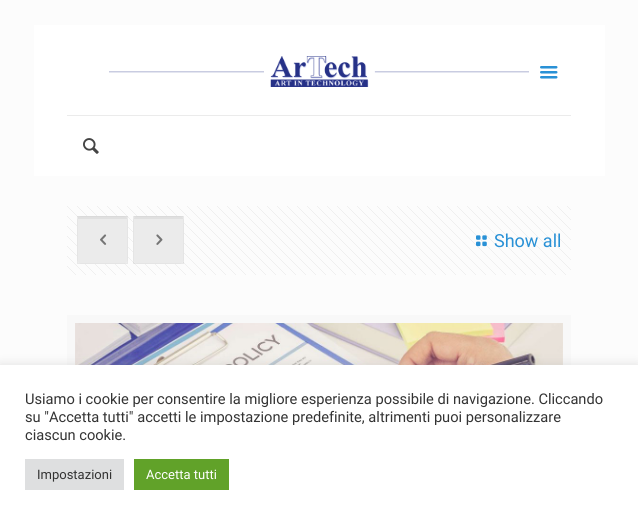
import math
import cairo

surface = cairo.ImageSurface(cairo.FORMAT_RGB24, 638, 520)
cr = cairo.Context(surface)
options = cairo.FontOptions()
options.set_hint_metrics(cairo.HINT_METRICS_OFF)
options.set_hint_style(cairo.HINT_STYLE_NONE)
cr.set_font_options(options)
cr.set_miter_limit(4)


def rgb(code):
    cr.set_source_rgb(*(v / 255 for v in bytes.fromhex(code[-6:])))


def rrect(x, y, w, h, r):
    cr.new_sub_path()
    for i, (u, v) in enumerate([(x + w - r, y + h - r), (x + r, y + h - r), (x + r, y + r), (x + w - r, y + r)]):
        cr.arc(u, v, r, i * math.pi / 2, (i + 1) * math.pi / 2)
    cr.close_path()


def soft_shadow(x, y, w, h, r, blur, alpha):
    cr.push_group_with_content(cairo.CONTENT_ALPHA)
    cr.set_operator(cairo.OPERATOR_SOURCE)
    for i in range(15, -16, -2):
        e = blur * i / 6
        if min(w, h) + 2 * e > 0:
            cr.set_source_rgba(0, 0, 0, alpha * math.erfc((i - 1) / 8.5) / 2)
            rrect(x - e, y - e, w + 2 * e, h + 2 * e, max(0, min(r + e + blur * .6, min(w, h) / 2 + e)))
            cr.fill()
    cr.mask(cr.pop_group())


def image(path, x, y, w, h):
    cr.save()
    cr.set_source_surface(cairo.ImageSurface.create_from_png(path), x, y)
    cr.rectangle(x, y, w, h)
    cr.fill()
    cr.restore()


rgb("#fcfcfc")
cr.paint()
rgb("#ffffff")
cr.rectangle(34, 25, 571, 151)
cr.fill()
rgb("#ebebeb")
cr.rectangle(67, 115, 504, 1)
cr.fill()
image("img/1.png", 109, 56, 420, 31)
image("img/2.png", 540, 66, 18, 13)
image("img/3.png", 83, 138, 16, 16)
image("img/4.png", 67, 206, 504, 69)
rgb("#f7f7f7")
rrect(77, 216, 51, 48, 5)
cr.fill()
cr.set_source_rgba(0, 0, 0, 0.05)
cr.rectangle(78, 216, 49, 3)
cr.fill()
cr.rectangle(77.5, 216.5, 50, 47)
cr.set_source_rgba(0, 0, 0, 0.03)
cr.set_line_width(1)
cr.stroke()
cr.set_source_rgba(0, 0, 0, 0.05)
cr.rectangle(77, 216, 51, 48)
cr.fill()
image("img/5.png", 100, 234, 7, 11)
rgb("#f7f7f7")
rrect(133, 216, 51, 48, 5)
cr.fill()
cr.set_source_rgba(0, 0, 0, 0.05)
cr.rectangle(134, 216, 49, 3)
cr.fill()
cr.rectangle(133.5, 216.5, 50, 47)
cr.set_source_rgba(0, 0, 0, 0.03)
cr.stroke()
cr.set_source_rgba(0, 0, 0, 0.05)
cr.rectangle(133, 216, 51, 48)
cr.fill()
image("img/6.png", 156, 234, 7, 11)
image("img/7.png", 476, 235, 11, 12)
cr.rectangle(71, 319, 496, 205)
rgb("#f8f8f8")
cr.set_line_width(8)
cr.stroke()
image("img/8.png", 75, 323, 488, 42)
rgb("#acabab")
soft_shadow(0, 364, 638, 155, 0, 5, 0.3)
for x, y, w, h, color in [
    (0, 365, 638, 155, "#ffffff"),
    (25, 459, 99, 31, "#dedfe0"),
    (134, 459, 95, 31, "#61a229"),
]:
    rgb(color)
    cr.rectangle(x, y, w, h)
    cr.fill()
cr.select_font_face("Roboto")
cr.set_font_size(18)
rgb("#2991d6")
cr.move_to(494, 247)
cr.show_text("Show all")
cr.set_font_size(14.65)
rgb("#333333")
for x, y, s in [
    (25, 404, "Usiamo i cookie per consentire la migliore esperienza possibile di navigazione. Cliccando"),
    (25, 422, "su \"Accetta tutti\" accetti le impostazione predefinite, altrimenti puoi personalizzare"),
    (25, 440, "ciascun cookie."),
]:
    cr.move_to(x, y)
    cr.show_text(s)
cr.set_font_size(13)
cr.move_to(37, 479)
cr.show_text("Impostazioni")
rgb("#ffffff")
cr.move_to(146, 479)
cr.show_text("Accetta tutti")
surface.write_to_png("page.png")
